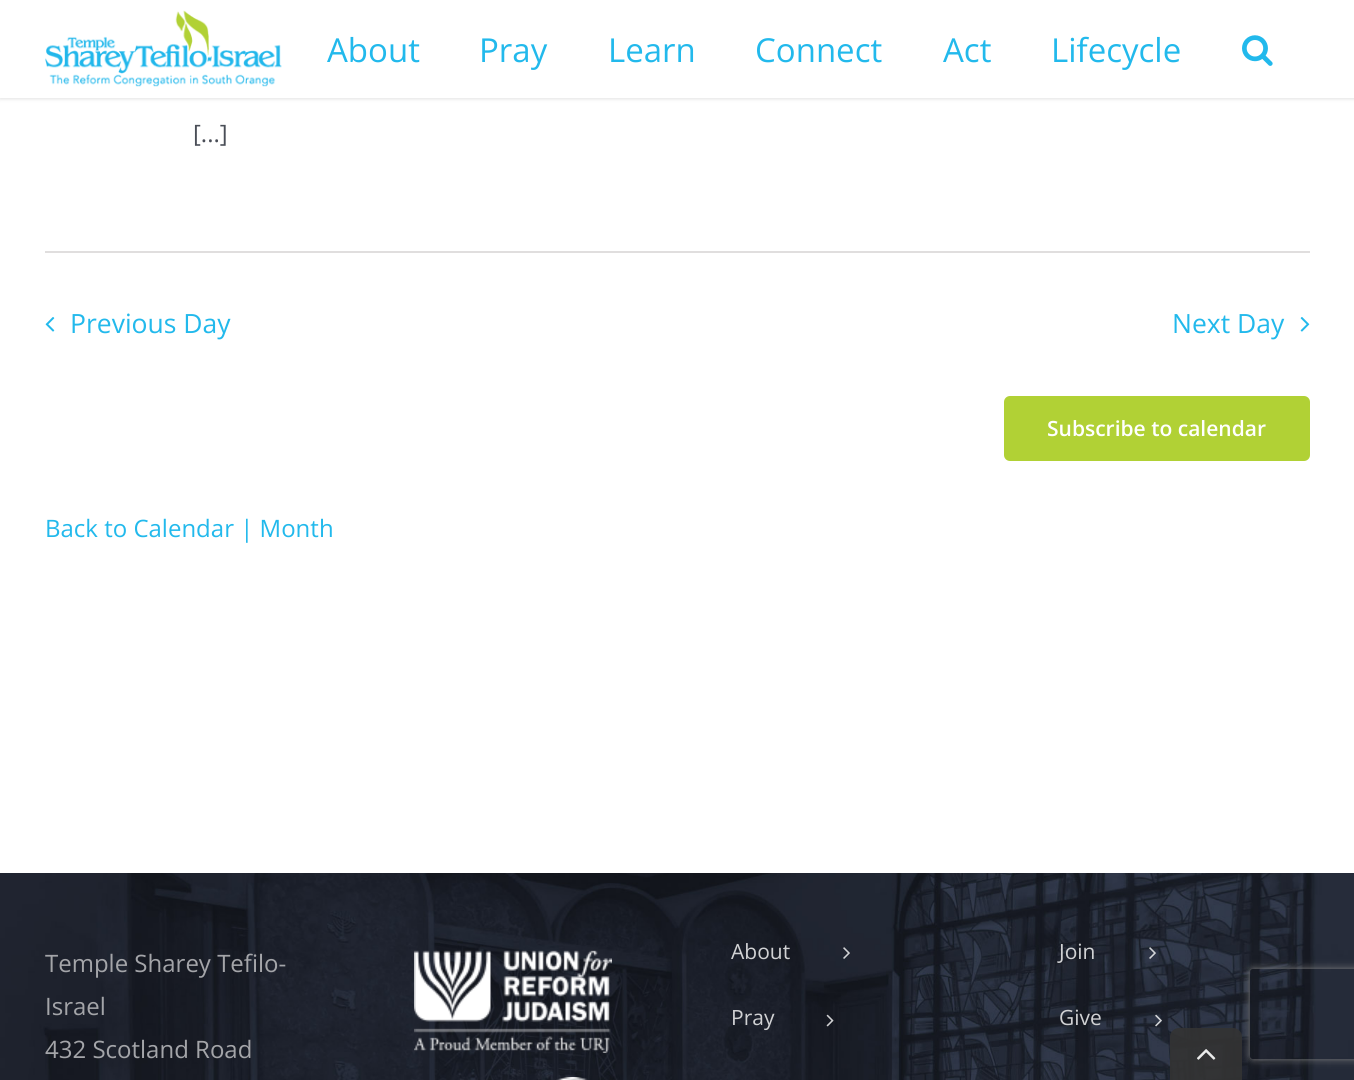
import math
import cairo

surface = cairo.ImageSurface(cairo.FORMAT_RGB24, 1354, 1080)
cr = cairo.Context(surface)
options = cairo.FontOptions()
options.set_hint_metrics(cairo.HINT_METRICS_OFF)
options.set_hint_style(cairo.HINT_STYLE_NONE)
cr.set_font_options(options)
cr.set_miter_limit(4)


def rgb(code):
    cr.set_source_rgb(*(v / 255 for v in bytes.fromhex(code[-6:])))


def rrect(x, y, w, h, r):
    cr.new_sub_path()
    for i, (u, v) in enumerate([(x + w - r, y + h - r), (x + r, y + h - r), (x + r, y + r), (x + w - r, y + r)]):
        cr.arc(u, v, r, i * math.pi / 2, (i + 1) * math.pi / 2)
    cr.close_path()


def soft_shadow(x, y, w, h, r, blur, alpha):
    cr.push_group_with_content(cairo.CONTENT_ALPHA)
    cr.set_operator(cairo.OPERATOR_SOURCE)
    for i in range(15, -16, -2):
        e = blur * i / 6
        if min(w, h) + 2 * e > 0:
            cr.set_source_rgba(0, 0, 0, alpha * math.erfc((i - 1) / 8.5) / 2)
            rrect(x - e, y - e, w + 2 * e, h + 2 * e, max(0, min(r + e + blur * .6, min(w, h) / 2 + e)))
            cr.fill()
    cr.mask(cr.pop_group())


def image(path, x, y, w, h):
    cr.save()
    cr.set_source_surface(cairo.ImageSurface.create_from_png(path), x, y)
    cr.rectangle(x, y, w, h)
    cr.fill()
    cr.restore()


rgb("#ffffff")
cr.paint()
rgb("#000000")
soft_shadow(0, 2, 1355, 97, 0, 2, 0.12)
rgb("#ffffff")
cr.rectangle(0, 0, 1354, 98)
cr.fill()
image("img/1.png", 45, 10, 237, 77)
image("img/2.png", 1242, 35, 31, 31)
rgb("#e0dede")
cr.rectangle(45, 251, 1265, 2)
cr.fill()
image("img/3.png", 45, 317, 10, 15)
image("img/4.png", 1300, 317, 10, 15)
rgb("#b1d135")
rrect(1004, 396, 306, 65, 6)
cr.fill()
image("img/5.png", 0, 873, 1354, 207)
image("img/6.png", 414, 950, 198, 103)
image("img/7.png", 556, 1077, 32, 3)
image("img/8.png", 843, 947, 7, 12)
image("img/9.png", 826, 1014, 8, 13)
image("img/10.png", 1149, 947, 7, 12)
image("img/11.png", 1155, 1014, 7, 13)
cr.save()
cr.set_fill_rule(cairo.FILL_RULE_EVEN_ODD)
cr.new_path()
cr.move_to(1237, 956)
cr.line_to(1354, 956)
cr.line_to(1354, 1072)
cr.line_to(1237, 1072)
cr.close_path()
cr.move_to(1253, 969)
cr.line_to(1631, 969)
cr.curve_to(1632.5, 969, 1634, 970.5, 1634, 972)
cr.line_to(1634, 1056)
cr.curve_to(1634, 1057.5, 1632.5, 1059, 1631, 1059)
cr.line_to(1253, 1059)
cr.curve_to(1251.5, 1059, 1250, 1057.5, 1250, 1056)
cr.line_to(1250, 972)
cr.curve_to(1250, 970.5, 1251.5, 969, 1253, 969)
cr.close_path()
cr.clip()
rgb("#808080")
soft_shadow(1250, 969, 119, 90, 3, 4, 1)
cr.restore()
cr.set_source_rgba(0.2, 0.2, 0.2, 0.9)
cr.new_path()
cr.move_to(1179, 1028)
cr.line_to(1233, 1028)
cr.curve_to(1238, 1028, 1242, 1032, 1242, 1037)
cr.line_to(1242, 1080)
cr.line_to(1170, 1080)
cr.line_to(1170, 1037)
cr.curve_to(1170, 1032, 1174, 1028, 1179, 1028)
cr.close_path()
cr.fill()
image("img/12.png", 1197, 1049, 19, 11)
cr.select_font_face("Open Sans")
cr.set_font_size(33)
rgb("#22b9ec")
for x, y, s in [
    (327, 62, "About"),
    (479, 62, "Pray"),
    (608, 62, "Learn"),
    (755, 62, "Connect"),
    (943, 62, "Act"),
    (1051, 62, "Lifecycle"),
]:
    cr.move_to(x, y)
    cr.show_text(s)
cr.set_font_size(24)
rgb("#4a4e57")
cr.move_to(193, 142)
cr.show_text("[...]")
cr.set_font_size(26.5)
rgb("#22b9ec")
cr.move_to(70, 333)
cr.show_text("Previous Day")
cr.move_to(1172, 333)
cr.show_text("Next Day")
cr.select_font_face("Open Sans SemiBold")
cr.set_font_size(21)
rgb("#ffffff")
cr.move_to(1047, 436)
cr.show_text("Subscribe to calendar")
cr.select_font_face("Open Sans")
cr.set_font_size(24)
rgb("#22b9ec")
cr.move_to(45, 537)
cr.show_text("Back to Calendar | Month")
rgb("#a4a5a9")
for x, y, s in [
    (45, 972, "Temple Sharey Tefilo-"),
    (45, 1015, "Israel"),
    (45, 1058, "432 Scotland Road"),
]:
    cr.move_to(x, y)
    cr.show_text(s)
cr.set_font_size(21)
rgb("#d1d2d4")
for x, y, s in [
    (731, 959, "About"),
    (731, 1025, "Pray"),
    (1059, 959, "Join"),
    (1059, 1025, "Give"),
]:
    cr.move_to(x, y)
    cr.show_text(s)
surface.write_to_png("page.png")
